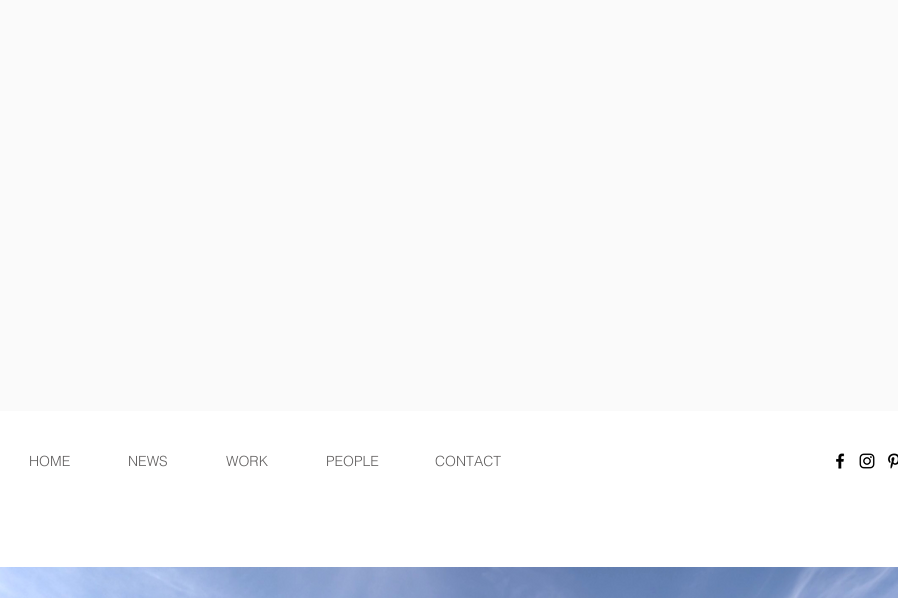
import math
import cairo

surface = cairo.ImageSurface(cairo.FORMAT_RGB24, 898, 598)
cr = cairo.Context(surface)
options = cairo.FontOptions()
options.set_hint_metrics(cairo.HINT_METRICS_OFF)
options.set_hint_style(cairo.HINT_STYLE_NONE)
cr.set_font_options(options)
cr.set_miter_limit(4)


def rgb(code):
    cr.set_source_rgb(*(v / 255 for v in bytes.fromhex(code[-6:])))


def image(path, x, y, w, h):
    cr.save()
    cr.set_source_surface(cairo.ImageSurface.create_from_png(path), x, y)
    cr.rectangle(x, y, w, h)
    cr.fill()
    cr.restore()


rgb("#ffffff")
cr.paint()
rgb("#fafafa")
cr.rectangle(0, 0, 898, 411)
cr.fill()
image("img/1.png", 836, 453, 9, 16)
image("img/2.png", 859, 453, 16, 16)
image("img/3.png", 887, 453, 11, 16)
image("img/4.png", 0, 567, 898, 31)
cr.select_font_face("helvetica Light")
cr.set_font_size(14)
rgb("#605e5e")
for x, y, s in [
    (29, 466, "HOME"),
    (128, 466, "NEWS"),
    (226, 466, "WORK"),
    (326, 466, "PEOPLE"),
    (435, 466, "CONTACT"),
]:
    cr.move_to(x, y)
    cr.show_text(s)
surface.write_to_png("page.png")
